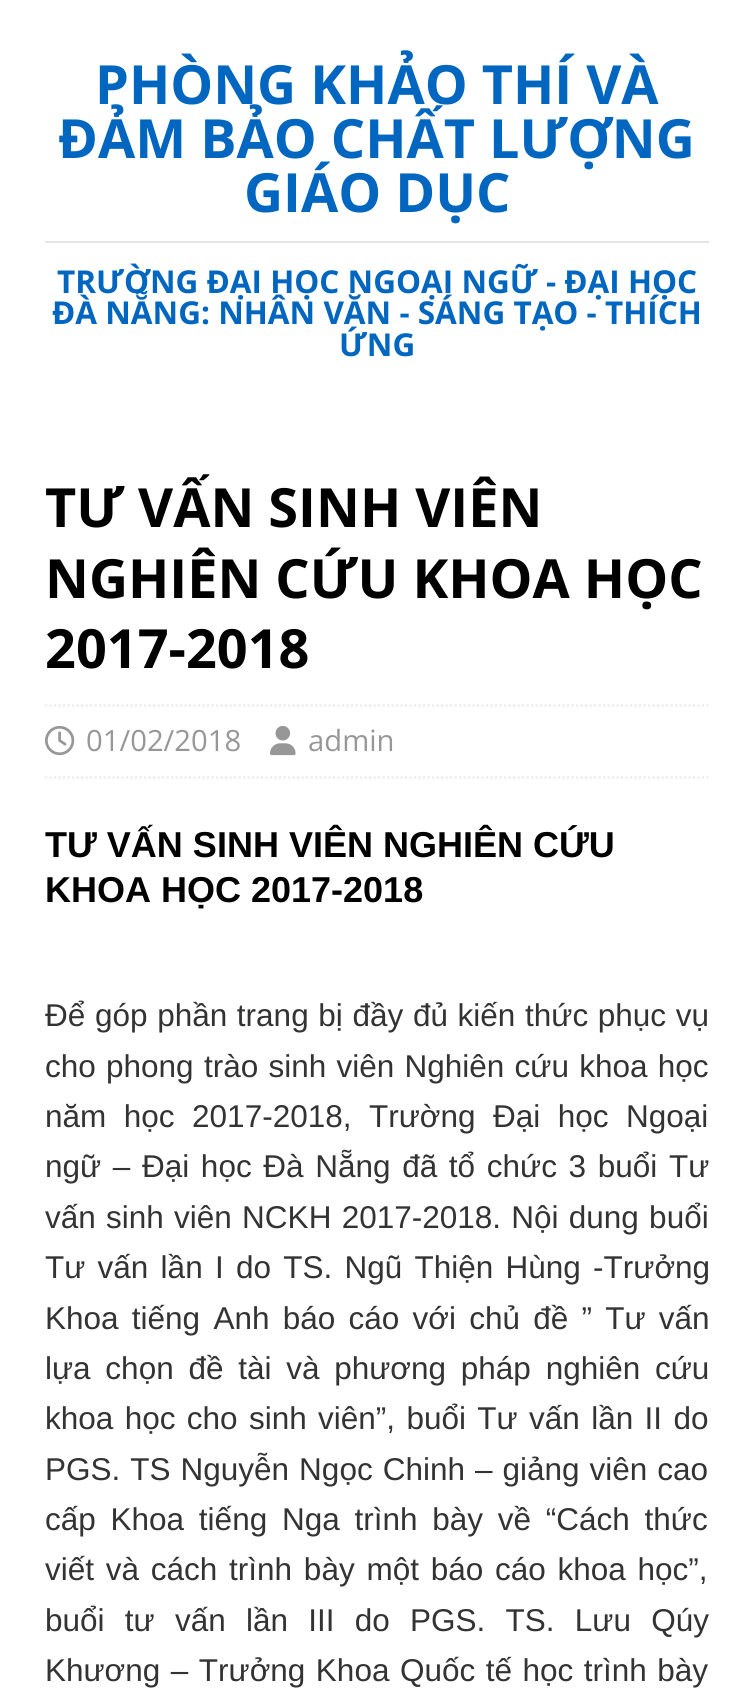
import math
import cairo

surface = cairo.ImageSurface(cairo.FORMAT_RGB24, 752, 1691)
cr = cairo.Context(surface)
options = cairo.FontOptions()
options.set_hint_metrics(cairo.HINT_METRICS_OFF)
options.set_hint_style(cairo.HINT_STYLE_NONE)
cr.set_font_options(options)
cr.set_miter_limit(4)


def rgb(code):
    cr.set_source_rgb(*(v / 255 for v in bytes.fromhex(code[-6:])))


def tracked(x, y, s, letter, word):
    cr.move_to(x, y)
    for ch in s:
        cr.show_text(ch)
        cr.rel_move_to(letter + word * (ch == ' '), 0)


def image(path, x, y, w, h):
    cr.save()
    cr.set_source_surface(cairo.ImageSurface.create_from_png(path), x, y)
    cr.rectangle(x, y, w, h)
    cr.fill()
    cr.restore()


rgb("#ffffff")
cr.paint()
rgb("#e5e5e5")
cr.rectangle(45, 241, 664, 2)
cr.fill()
cr.new_path()
cr.move_to(45, 705.5)
cr.line_to(709, 705.5)
rgb("#ebebeb")
cr.set_line_width(2.2)
cr.set_dash([2.25, 2.25])
cr.stroke()
cr.new_path()
cr.move_to(45, 777.5)
cr.line_to(709, 777.5)
cr.stroke()
image("img/1.png", 45, 725, 30, 31)
image("img/2.png", 270, 725, 26, 31)
cr.select_font_face("Open Sans", cairo.FONT_SLANT_NORMAL, cairo.FONT_WEIGHT_BOLD)
cr.set_font_size(54)
rgb("#0066bf")
for x, y, s in [
    (95, 104, "PHÒNG KHẢO THÍ VÀ"),
    (58, 158, "ĐẢM BẢO CHẤT LƯỢNG"),
    (244, 212, "GIÁO DỤC"),
]:
    cr.move_to(x, y)
    cr.show_text(s)
cr.set_font_size(31.5)
for x, y, s in [
    (57, 293, "TRƯỜNG ĐẠI HỌC NGOẠI NGỮ - ĐẠI HỌC"),
    (52, 324, "ĐÀ NẴNG: NHÂN VĂN - SÁNG TẠO - THÍCH"),
    (339, 356, "ỨNG"),
]:
    cr.move_to(x, y)
    cr.show_text(s)
cr.set_font_size(54)
rgb("#000000")
for x, y, s in [
    (45, 527, "TƯ VẤN SINH VIÊN"),
    (45, 598, "NGHIÊN CỨU KHOA HỌC"),
    (45, 668, "2017-2018"),
]:
    cr.move_to(x, y)
    cr.show_text(s)
cr.select_font_face("Open Sans")
cr.set_font_size(29.25)
rgb("#979797")
cr.move_to(86, 751)
cr.show_text("01/02/2018")
cr.move_to(308, 751)
cr.show_text("admin")
cr.select_font_face("Liberation Sans", cairo.FONT_SLANT_NORMAL, cairo.FONT_WEIGHT_BOLD)
cr.set_font_size(36)
rgb("#000000")
cr.move_to(45, 857)
cr.show_text("TƯ VẤN SINH VIÊN NGHIÊN CỨU")
cr.move_to(45, 902)
cr.show_text("KHOA HỌC 2017-2018")
cr.select_font_face("Liberation Sans")
cr.set_font_size(31.5)
rgb("#333333")
tracked(45, 1026, "Để góp phần trang bị đầy đủ kiến thức phục vụ", 0, 0.9)
tracked(45, 1077, "cho phong trào sinh viên Nghiên cứu khoa học", 0, 1.5)
tracked(45, 1127, "năm học 2017-2018, Trường Đại học Ngoại", 0, 8.75)
tracked(45, 1177, "ngữ – Đại học Đà Nẵng đã tổ chức 3 buổi Tư", 0, 2.9)
tracked(45, 1228, "vấn sinh viên NCKH 2017-2018. Nội dung buổi", 0, 1.5)
tracked(45, 1278, "Tư vấn lần I do TS. Ngũ Thiện Hùng -Trưởng", 0, 3.5)
tracked(45, 1329, "Khoa tiếng Anh báo cáo với chủ đề ” Tư vấn", 0, 4.5)
tracked(45, 1379, "lựa chọn đề tài và phương pháp nghiên cứu", 0, 6)
tracked(45, 1429, "khoa học cho sinh viên”, buổi Tư vấn lần II do", 0, 2.6)
tracked(45, 1480, "PGS. TS Nguyễn Ngọc Chinh – giảng viên cao", 0, 1.25)
tracked(45, 1530, "cấp Khoa tiếng Nga trình bày về “Cách thức", 0, 6)
tracked(45, 1580, "viết và cách trình bày một báo cáo khoa học”,", 0, 3)
tracked(45, 1631, "buổi tư vấn lần III do PGS. TS. Lưu Qúy", 0, 11.5)
tracked(45, 1681, "Khương – Trưởng Khoa Quốc tế học trình bày", 0, 1.75)
surface.write_to_png("page.png")
